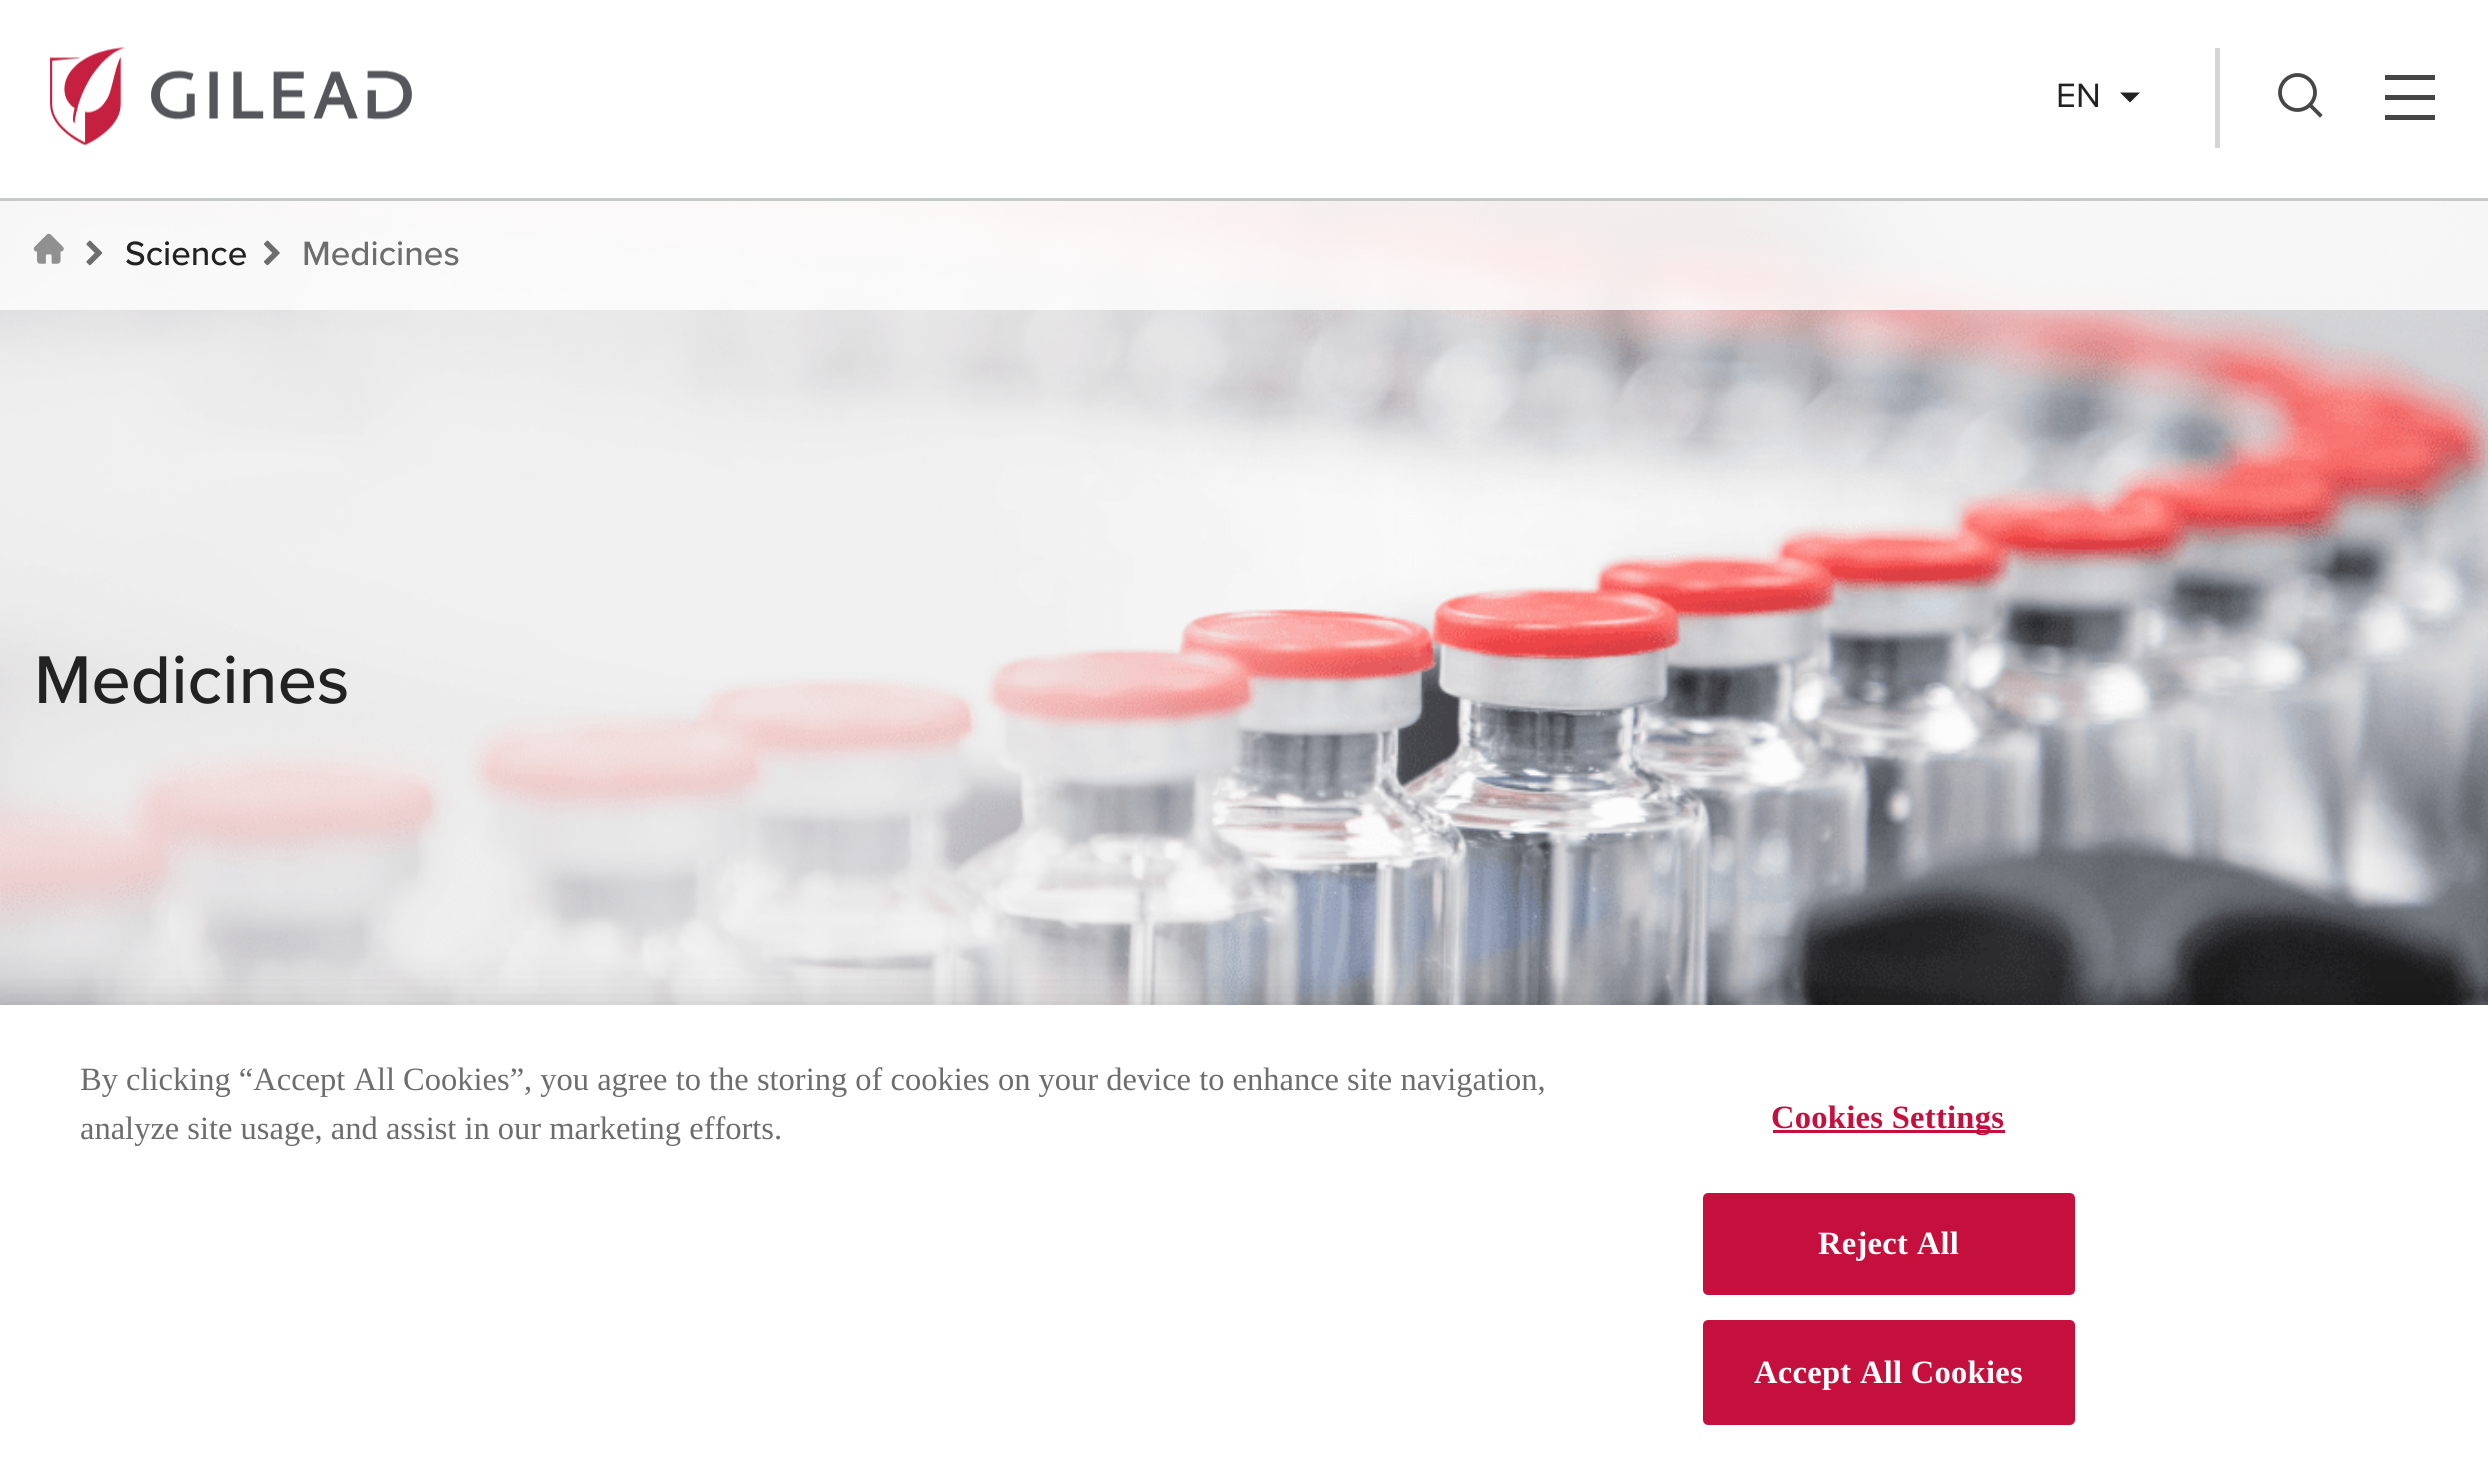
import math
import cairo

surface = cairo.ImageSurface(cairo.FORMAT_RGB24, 2488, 1475)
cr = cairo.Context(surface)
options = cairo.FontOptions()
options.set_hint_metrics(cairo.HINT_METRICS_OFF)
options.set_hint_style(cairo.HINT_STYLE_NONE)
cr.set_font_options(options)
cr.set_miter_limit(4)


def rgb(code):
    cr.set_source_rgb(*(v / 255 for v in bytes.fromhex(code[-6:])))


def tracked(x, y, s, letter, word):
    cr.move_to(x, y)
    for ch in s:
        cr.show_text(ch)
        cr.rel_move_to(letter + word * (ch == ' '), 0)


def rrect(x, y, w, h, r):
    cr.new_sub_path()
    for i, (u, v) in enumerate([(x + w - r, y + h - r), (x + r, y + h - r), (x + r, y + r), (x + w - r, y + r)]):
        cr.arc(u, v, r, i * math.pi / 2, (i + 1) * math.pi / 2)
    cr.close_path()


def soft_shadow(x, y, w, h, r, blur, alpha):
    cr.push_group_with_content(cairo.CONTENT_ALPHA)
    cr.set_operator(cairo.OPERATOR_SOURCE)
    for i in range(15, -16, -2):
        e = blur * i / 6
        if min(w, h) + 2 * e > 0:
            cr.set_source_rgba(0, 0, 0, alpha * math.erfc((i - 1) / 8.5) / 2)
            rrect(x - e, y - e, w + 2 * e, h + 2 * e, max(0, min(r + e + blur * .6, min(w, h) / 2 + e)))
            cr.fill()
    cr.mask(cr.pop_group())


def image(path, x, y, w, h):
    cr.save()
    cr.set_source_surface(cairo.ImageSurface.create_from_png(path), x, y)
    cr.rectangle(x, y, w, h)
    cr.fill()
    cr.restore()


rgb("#ffffff")
cr.paint()
rgb("#c6cac6")
cr.rectangle(0, 198, 2488, 3)
cr.fill()
image("img/1.png", 50, 47, 362, 99)
rgb("#222222")
cr.new_path()
cr.move_to(2120, 92.5)
cr.line_to(2140, 92.5)
cr.line_to(2130, 102.5)
cr.close_path()
cr.fill()
rgb("#d5d5d5")
cr.rectangle(2215, 48, 5, 100)
cr.fill()
cr.new_path()
cr.move_to(2297.5, 110)
cr.curve_to(2307, 110, 2315, 102, 2315, 92.5)
cr.curve_to(2315, 83, 2307, 75, 2297.5, 75)
cr.curve_to(2288, 75, 2280, 83, 2280, 92.5)
cr.curve_to(2280, 102, 2288, 110, 2297.5, 110)
cr.close_path()
rgb("#464646")
cr.set_line_width(3.8)
cr.set_line_cap(cairo.LINE_CAP_ROUND)
cr.set_line_join(cairo.LINE_JOIN_ROUND)
cr.stroke()
cr.new_path()
cr.move_to(2320, 115)
cr.line_to(2310, 105)
cr.set_line_cap(cairo.LINE_CAP_SQUARE)
cr.stroke()
for x, y, w, h, color in [
    (2385, 115, 50, 5, "#464646"),
    (2385, 95, 50, 5, "#464646"),
    (2385, 75, 50, 5, "#464646"),
]:
    rgb(color)
    cr.rectangle(x, y, w, h)
    cr.fill()
image("img/5.png", 0, 201, 2488, 804)
cr.set_source_rgba(1, 1, 1, 0.8)
cr.rectangle(0, 201, 2488, 109)
cr.fill()
image("img/2.png", 33, 233, 31, 31)
image("img/3.png", 86, 240, 17, 26)
image("img/4.png", 263, 240, 17, 26)
rgb("#000000")
soft_shadow(0, 1005, 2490, 470, 0, 22.5, 0.2)
rgb("#ffffff")
cr.rectangle(0, 1005, 2488, 470)
cr.fill()
rgb("#c50f3c")
cr.rectangle(1773, 1130, 232, 3)
cr.fill()
rrect(1704.5, 1194.5, 369, 99, 3.5)
cr.fill_preserve()
cr.set_line_width(3)
cr.set_line_cap(cairo.LINE_CAP_BUTT)
cr.set_line_join(cairo.LINE_JOIN_MITER)
cr.stroke()
rrect(1704.5, 1321.5, 369, 102, 3.5)
cr.fill_preserve()
cr.stroke()
cr.select_font_face("Proxima Nova")
cr.set_font_size(35)
rgb("#222222")
cr.move_to(2056, 107)
cr.show_text("EN")
cr.select_font_face("Proxima Nova Medium")
cr.move_to(125, 265)
cr.show_text("Science")
rgb("#6d6d6d")
cr.move_to(302, 265)
cr.show_text("Medicines")
cr.set_font_size(70)
rgb("#222222")
cr.move_to(34, 703)
cr.show_text("Medicines")
cr.select_font_face("Liberation Serif")
cr.set_font_size(32.5)
rgb("#6d6d6d")
cr.move_to(80, 1090)
cr.show_text("By clicking “Accept All Cookies”, you agree to the storing of cookies on your device to enhance site navigation,")
cr.move_to(80, 1139)
cr.show_text("analyze site usage, and assist in our marketing efforts.")
cr.select_font_face("Liberation Serif", cairo.FONT_SLANT_NORMAL, cairo.FONT_WEIGHT_BOLD)
rgb("#c50f3c")
tracked(1771, 1128, "Cookies Settings", 0.3, 0)
rgb("#ffffff")
tracked(1818, 1254, "Reject All", 0.3, 0)
tracked(1754, 1383, "Accept All Cookies", 0.3, 0)
surface.write_to_png("page.png")
